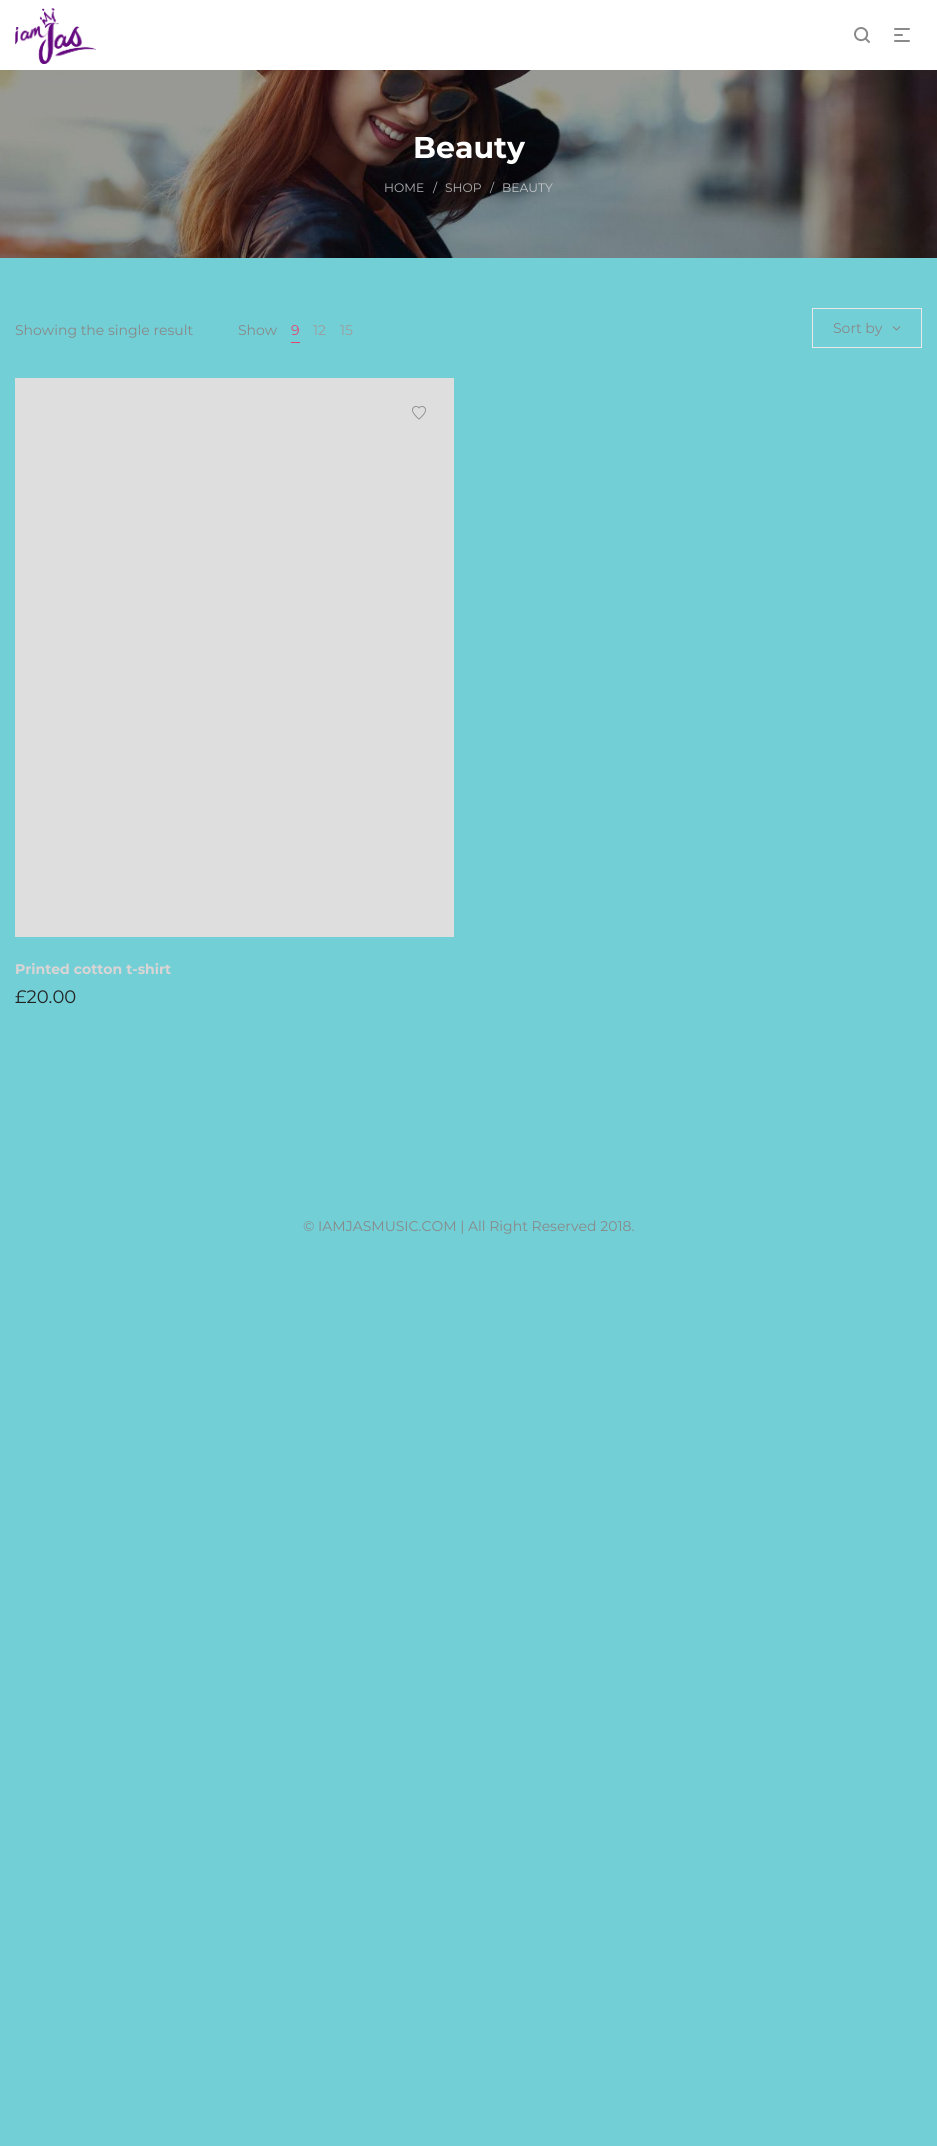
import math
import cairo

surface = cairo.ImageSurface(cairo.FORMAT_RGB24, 937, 2146)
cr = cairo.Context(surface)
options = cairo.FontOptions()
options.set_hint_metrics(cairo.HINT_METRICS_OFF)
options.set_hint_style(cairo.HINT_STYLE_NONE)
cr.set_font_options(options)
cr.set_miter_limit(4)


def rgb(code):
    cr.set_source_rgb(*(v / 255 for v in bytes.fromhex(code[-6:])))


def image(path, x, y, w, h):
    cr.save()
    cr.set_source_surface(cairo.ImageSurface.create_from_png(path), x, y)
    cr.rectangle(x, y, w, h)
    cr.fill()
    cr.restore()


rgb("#72cfd6")
cr.paint()
rgb("#ffffff")
cr.rectangle(0, 0, 937, 70)
cr.fill()
image("img/1.png", 15, 8, 81, 56)
image("img/2.png", 854, 27, 16, 16)
image("img/3.png", 894, 28, 16, 14)
image("img/4.png", 0, 70, 937, 188)
rgb("#e74371")
cr.rectangle(291, 342, 9, 1)
cr.fill()
cr.rectangle(812.5, 308.5, 109, 39)
rgb("#e8e8e8")
cr.set_line_width(1)
cr.stroke()
image("img/5.png", 892, 326, 9, 5)
rgb("#dedede")
cr.rectangle(15, 378, 439, 559)
cr.fill()
image("img/6.png", 412, 406, 14, 14)
cr.select_font_face("Montserrat", cairo.FONT_SLANT_NORMAL, cairo.FONT_WEIGHT_BOLD)
cr.set_font_size(30)
rgb("#ffffff")
cr.move_to(413, 158)
cr.show_text("Beauty")
cr.select_font_face("Montserrat")
cr.set_font_size(12.25)
rgb("#b1b1b2")
for x, y, s in [
    (384, 192, "HOME"),
    (433, 192, "/"),
    (445, 192, "SHOP"),
    (490, 192, "/"),
]:
    cr.move_to(x, y)
    cr.show_text(s)
rgb("#c3c7c9")
cr.move_to(502, 192)
cr.show_text("BEAUTY")
cr.set_font_size(14)
rgb("#888888")
cr.move_to(15, 335)
cr.show_text("Showing the single result")
cr.move_to(238, 335)
cr.show_text("Show")
rgb("#e74371")
cr.move_to(291, 335)
cr.show_text("9")
rgb("#9d9d9d")
cr.move_to(313, 335)
cr.show_text("12")
cr.move_to(340, 335)
cr.show_text("15")
rgb("#888888")
cr.move_to(833, 333)
cr.show_text("Sort by")
cr.select_font_face("Montserrat", cairo.FONT_SLANT_NORMAL, cairo.FONT_WEIGHT_BOLD)
rgb("#dbd4d4")
cr.move_to(15, 974)
cr.show_text("Printed cotton t-shirt")
cr.select_font_face("Montserrat")
cr.set_font_size(18)
rgb("#232324")
cr.move_to(15, 1003)
cr.show_text("£20.00")
cr.set_font_size(14)
rgb("#888888")
cr.move_to(303, 1231)
cr.show_text("© IAMJASMUSIC.COM | All Right Reserved 2018.")
surface.write_to_png("page.png")
